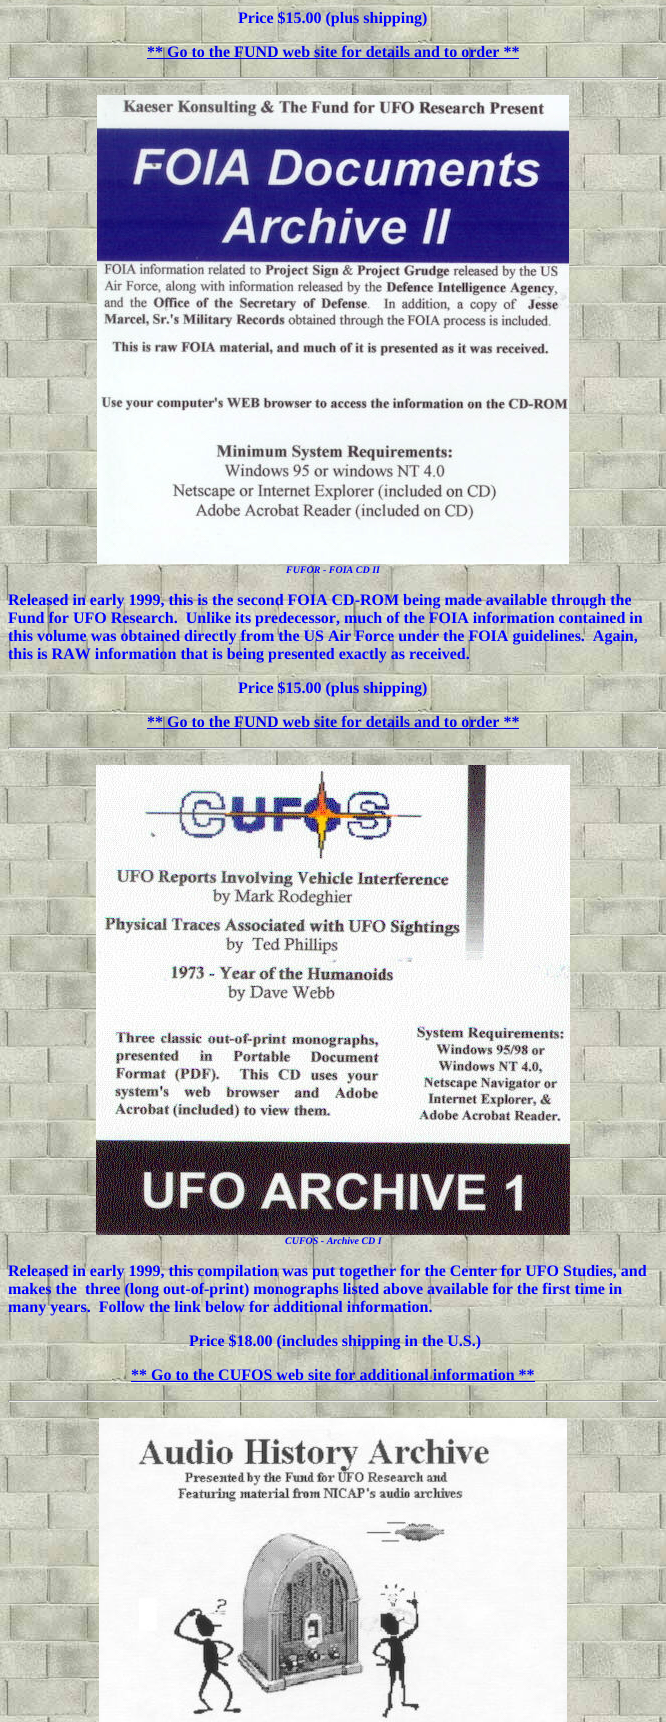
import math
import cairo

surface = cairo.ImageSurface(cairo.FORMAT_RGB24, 666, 1722)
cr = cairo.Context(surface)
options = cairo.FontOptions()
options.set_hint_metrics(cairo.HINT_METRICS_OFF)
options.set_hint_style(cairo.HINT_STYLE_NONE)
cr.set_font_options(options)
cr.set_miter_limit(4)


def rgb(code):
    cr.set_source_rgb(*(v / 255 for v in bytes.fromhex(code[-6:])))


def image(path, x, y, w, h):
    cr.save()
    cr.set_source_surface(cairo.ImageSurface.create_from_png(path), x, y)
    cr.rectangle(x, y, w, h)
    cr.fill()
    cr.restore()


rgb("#ffffff")
cr.paint()
image("img/1.png", 0, 0, 666, 1722)
for x, y, w, h, color in [
    (147, 58, 372, 1, "#0000ee"),
    (8, 77, 650, 1, "#9f9f9f"),
    (657, 77, 1, 2, "#eeeeee"),
    (8, 78, 650, 1, "#eeeeee"),
    (8, 77, 1, 2, "#9f9f9f"),
]:
    rgb(color)
    cr.rectangle(x, y, w, h)
    cr.fill()
image("img/2.png", 97, 95, 472, 469)
for x, y, w, h, color in [
    (147, 728, 372, 1, "#0000ee"),
    (8, 747, 650, 1, "#9f9f9f"),
    (657, 747, 1, 2, "#eeeeee"),
    (8, 748, 650, 1, "#eeeeee"),
    (8, 747, 1, 2, "#9f9f9f"),
]:
    rgb(color)
    cr.rectangle(x, y, w, h)
    cr.fill()
image("img/3.png", 96, 765, 474, 470)
for x, y, w, h, color in [
    (131, 1381, 404, 1, "#0000ee"),
    (8, 1400, 650, 1, "#9f9f9f"),
    (657, 1400, 1, 2, "#eeeeee"),
    (8, 1401, 650, 1, "#eeeeee"),
    (8, 1400, 1, 2, "#9f9f9f"),
]:
    rgb(color)
    cr.rectangle(x, y, w, h)
    cr.fill()
image("img/4.png", 99, 1418, 468, 304)
cr.select_font_face("Liberation Serif", cairo.FONT_SLANT_NORMAL, cairo.FONT_WEIGHT_BOLD)
cr.set_font_size(16)
rgb("#0000ff")
cr.move_to(238, 23)
cr.show_text("Price $15.00 (plus shipping)")
rgb("#0000ee")
cr.move_to(147, 57)
cr.show_text("** Go to the FUND web site for details and to order **")
cr.select_font_face("Liberation Serif", cairo.FONT_SLANT_ITALIC, cairo.FONT_WEIGHT_BOLD)
cr.set_font_size(10)
rgb("#0000ff")
cr.move_to(286, 573)
cr.show_text("FUFOR - FOIA CD II")
cr.select_font_face("Liberation Serif", cairo.FONT_SLANT_NORMAL, cairo.FONT_WEIGHT_BOLD)
cr.set_font_size(16)
for x, y, s in [
    (8, 605, "Released in early 1999, this is the second FOIA CD-ROM being made available through the"),
    (8, 623, "Fund for UFO Research.  Unlike its predecessor, much of the FOIA information contained in"),
    (8, 641, "this volume was obtained directly from the US Air Force under the FOIA guidelines.  Again,"),
    (8, 659, "this is RAW information that is being presented exactly as received."),
    (238, 693, "Price $15.00 (plus shipping)"),
]:
    cr.move_to(x, y)
    cr.show_text(s)
rgb("#0000ee")
cr.move_to(147, 727)
cr.show_text("** Go to the FUND web site for details and to order **")
cr.select_font_face("Liberation Serif", cairo.FONT_SLANT_ITALIC, cairo.FONT_WEIGHT_BOLD)
cr.set_font_size(10)
rgb("#0000ff")
cr.move_to(285, 1244)
cr.show_text("CUFOS - Archive CD I")
cr.select_font_face("Liberation Serif", cairo.FONT_SLANT_NORMAL, cairo.FONT_WEIGHT_BOLD)
cr.set_font_size(16)
for x, y, s in [
    (8, 1276, "Released in early 1999, this compilation was put together for the Center for UFO Studies, and"),
    (8, 1294, "makes the  three (long out-of-print) monographs listed above available for the first time in"),
    (8, 1312, "many years.  Follow the link below for additional information."),
    (189, 1346, "Price $18.00 (includes shipping in the U.S.)"),
    (131, 1380, "** Go to the CUFOS web site for additional information **"),
]:
    cr.move_to(x, y)
    cr.show_text(s)
surface.write_to_png("page.png")
